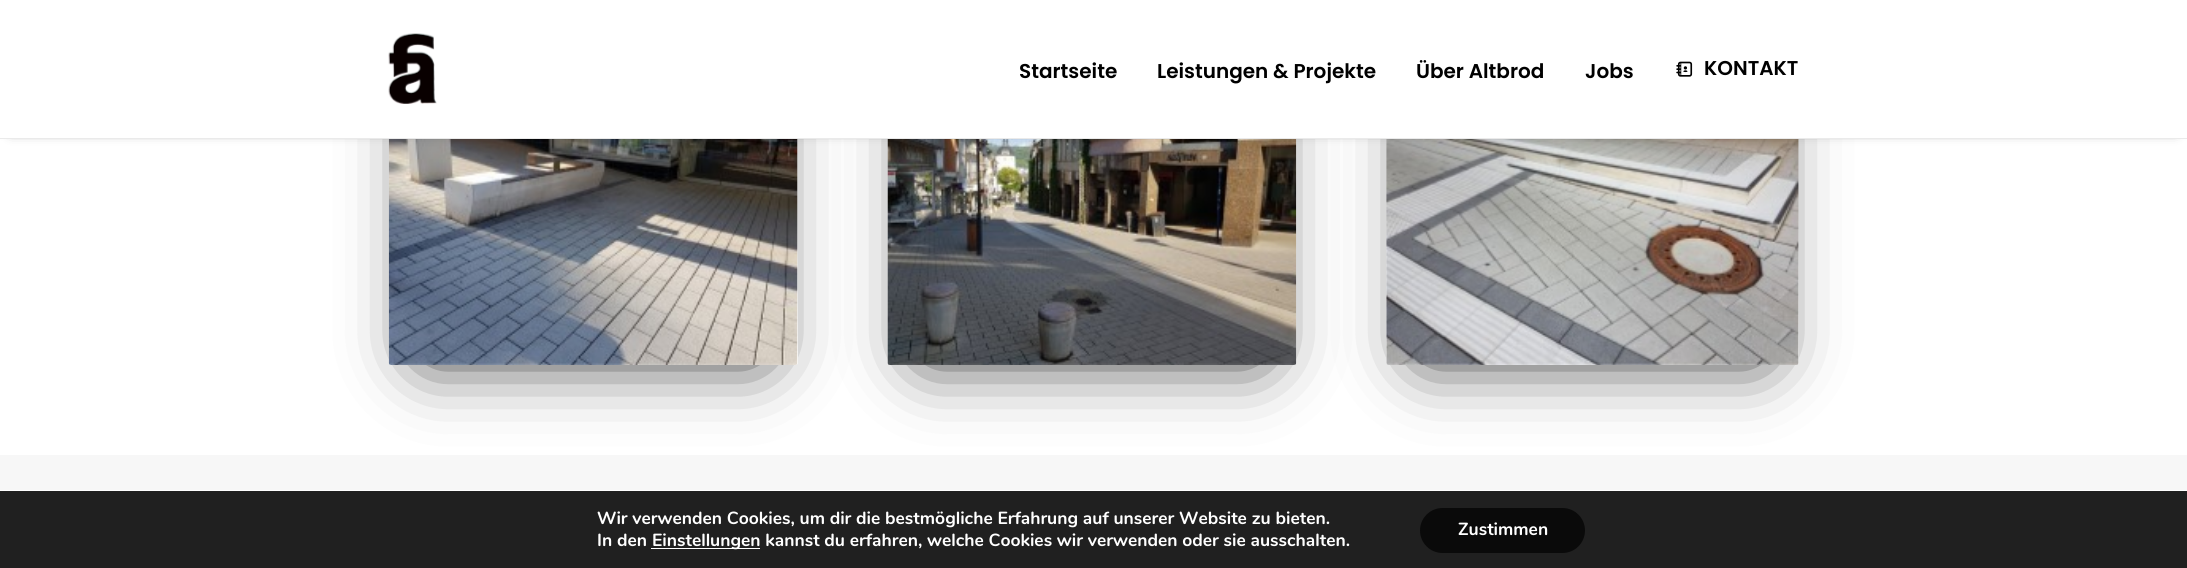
import math
import cairo

surface = cairo.ImageSurface(cairo.FORMAT_RGB24, 2187, 568)
cr = cairo.Context(surface)
options = cairo.FontOptions()
options.set_hint_metrics(cairo.HINT_METRICS_OFF)
options.set_hint_style(cairo.HINT_STYLE_NONE)
cr.set_font_options(options)
cr.set_miter_limit(4)


def rgb(code):
    cr.set_source_rgb(*(v / 255 for v in bytes.fromhex(code[-6:])))


def rrect(x, y, w, h, r):
    cr.new_sub_path()
    for i, (u, v) in enumerate([(x + w - r, y + h - r), (x + r, y + h - r), (x + r, y + r), (x + w - r, y + r)]):
        cr.arc(u, v, r, i * math.pi / 2, (i + 1) * math.pi / 2)
    cr.close_path()


def soft_shadow(x, y, w, h, r, blur, alpha):
    cr.push_group_with_content(cairo.CONTENT_ALPHA)
    cr.set_operator(cairo.OPERATOR_SOURCE)
    for i in range(15, -16, -2):
        e = blur * i / 6
        if min(w, h) + 2 * e > 0:
            cr.set_source_rgba(0, 0, 0, alpha * math.erfc((i - 1) / 8.5) / 2)
            rrect(x - e, y - e, w + 2 * e, h + 2 * e, max(0, min(r + e + blur * .6, min(w, h) / 2 + e)))
            cr.fill()
    cr.mask(cr.pop_group())


def image(path, x, y, w, h):
    cr.save()
    cr.set_source_surface(cairo.ImageSurface.create_from_png(path), x, y)
    cr.rectangle(x, y, w, h)
    cr.fill()
    cr.restore()


rgb("#f7f7f7")
cr.paint()
rgb("#ffffff")
cr.rectangle(0, 139, 2187, 316)
cr.fill()
rgb("#000000")
soft_shadow(426, 120, 334, 233, 0, 37.5, 1)
gradient = cairo.LinearGradient(593, 365, 593, 58)
gradient.add_color_stop_rgba(0, 1, 1, 1, 1)
gradient.add_color_stop_rgba(0.5, 1, 1, 1, 0)
cr.set_source(gradient)
rrect(389, 58, 409, 307, 2.5)
cr.fill()
image("img/1.png", 388, 139, 410, 226)
rgb("#000000")
soft_shadow(925, 120, 334, 233, 0, 37.5, 1)
image("img/2.png", 887, 139, 410, 226)
soft_shadow(1424, 120, 337, 233, 0, 37.5, 1)
gradient = cairo.LinearGradient(1593, 365, 1593, 58)
gradient.add_color_stop_rgba(0, 1, 1, 1, 1)
gradient.add_color_stop_rgba(0.5, 1, 1, 1, 0)
cr.set_source(gradient)
rrect(1386, 58, 413, 307, 2.5)
cr.fill()
image("img/3.png", 1386, 139, 413, 226)
rgb("#000000")
soft_shadow(11, 18, 2165, 113, 0, 6, 0.6)
rgb("#ffffff")
cr.rectangle(0, 0, 2187, 138)
cr.fill()
rgb("#eaeaea")
cr.rectangle(0, 138, 2187, 1)
cr.fill()
image("img/4.png", 388, 33, 49, 71)
image("img/5.png", 1676, 61, 17, 16)
for x, y, w, h, color in [
    (0, 491, 2187, 77, "#202020"),
    (0, 490, 2187, 1, "#ffffff"),
    (651, 548, 109, 1, "#ffffff"),
]:
    rgb(color)
    cr.rectangle(x, y, w, h)
    cr.fill()
rgb("#0a0a0a")
rrect(1420, 508, 165, 45, 22.5)
cr.fill()
cr.select_font_face("Poppins SemiBold")
cr.set_font_size(20)
rgb("#000000")
for x, y, s in [
    (1019, 78, "Startseite"),
    (1157, 78, "Leistungen & Projekte"),
    (1416, 78, "Über Altbrod"),
    (1585, 78, "Jobs"),
    (1704, 75, "KONTAKT"),
]:
    cr.move_to(x, y)
    cr.show_text(s)
cr.select_font_face("Nunito", cairo.FONT_SLANT_NORMAL, cairo.FONT_WEIGHT_BOLD)
cr.set_font_size(17.5)
rgb("#ffffff")
for x, y, s in [
    (597, 524, "Wir verwenden Cookies, um dir die bestmögliche Erfahrung auf unserer Website zu bieten."),
    (597, 546, "In den"),
    (652, 546, "Einstellungen kannst du erfahren, welche Cookies wir verwenden oder sie ausschalten."),
    (1458, 535, "Zustimmen"),
]:
    cr.move_to(x, y)
    cr.show_text(s)
surface.write_to_png("page.png")
